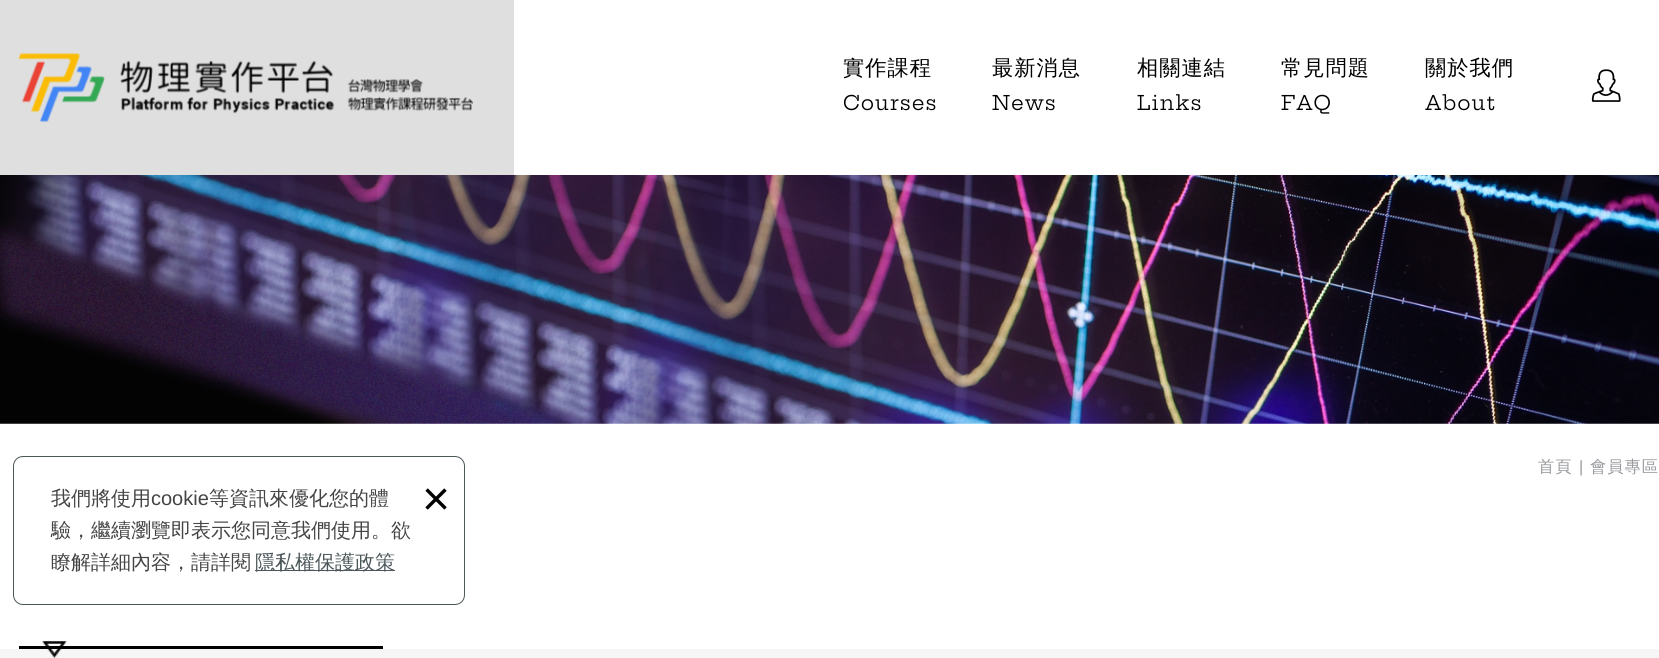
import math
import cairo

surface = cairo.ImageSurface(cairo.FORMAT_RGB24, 1659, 658)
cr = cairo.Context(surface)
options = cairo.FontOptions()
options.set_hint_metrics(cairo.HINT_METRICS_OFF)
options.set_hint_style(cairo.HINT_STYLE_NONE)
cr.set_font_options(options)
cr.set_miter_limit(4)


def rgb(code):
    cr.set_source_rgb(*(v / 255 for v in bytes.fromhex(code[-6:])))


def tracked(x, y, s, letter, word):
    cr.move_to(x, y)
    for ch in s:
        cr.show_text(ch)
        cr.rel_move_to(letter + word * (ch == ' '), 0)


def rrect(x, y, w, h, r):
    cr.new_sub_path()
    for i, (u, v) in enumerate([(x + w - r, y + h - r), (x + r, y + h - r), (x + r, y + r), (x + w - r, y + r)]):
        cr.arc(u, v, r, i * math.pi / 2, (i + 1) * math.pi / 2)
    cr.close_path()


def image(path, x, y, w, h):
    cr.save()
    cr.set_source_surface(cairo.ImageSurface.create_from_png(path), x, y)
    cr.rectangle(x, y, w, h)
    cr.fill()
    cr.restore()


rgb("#ffffff")
cr.paint()
rgb("#dfdfdf")
cr.rectangle(0, 0, 514, 175)
cr.fill()
image("img/1.png", 18, 53, 455, 69)
image("img/2.png", 1591, 69, 30, 33)
rrect(13.5, 456.5, 451, 148, 9.5)
rgb("#4c575a")
cr.set_line_width(1)
cr.stroke()
cr.rectangle(255, 570, 140, 1)
cr.fill()
image("img/3.png", 0, 175, 1659, 249)
rgb("#f6f6f6")
cr.rectangle(0, 649, 1659, 9)
cr.fill()
image("img/4.png", 42, 641, 25, 17)
rgb("#000000")
cr.rectangle(19, 646, 364, 3)
cr.fill()
cr.select_font_face("WenQuanYi Zen Hei Medium")
cr.set_font_size(21.25)
tracked(843, 75, "實作課程", 1, 0)
cr.select_font_face("Hepta Slab")
cr.set_font_size(20)
tracked(843, 110, "Courses", 1, 0)
cr.select_font_face("WenQuanYi Zen Hei Medium")
cr.set_font_size(21.25)
tracked(992, 75, "最新消息", 1, 0)
cr.select_font_face("Hepta Slab")
cr.set_font_size(20)
tracked(992, 110, "News", 1, 0)
cr.select_font_face("WenQuanYi Zen Hei Medium")
cr.set_font_size(21.25)
tracked(1137, 75, "相關連結", 1, 0)
cr.select_font_face("Hepta Slab")
cr.set_font_size(20)
tracked(1137, 110, "Links", 1, 0)
cr.select_font_face("WenQuanYi Zen Hei Medium")
cr.set_font_size(21.25)
tracked(1281, 75, "常見問題", 1, 0)
cr.select_font_face("Hepta Slab")
cr.set_font_size(20)
tracked(1281, 110, "FAQ", 1, 0)
cr.select_font_face("WenQuanYi Zen Hei Medium")
cr.set_font_size(21.25)
tracked(1425, 75, "關於我們", 1, 0)
cr.select_font_face("Hepta Slab")
cr.set_font_size(20)
tracked(1425, 110, "About", 1, 0)
cr.select_font_face("WenQuanYi Zen Hei Medium")
rgb("#444444")
cr.move_to(51, 505)
cr.show_text("我們將使用")
cr.select_font_face("Liberation Sans")
cr.move_to(151, 505)
cr.show_text("cookie")
cr.select_font_face("WenQuanYi Zen Hei Medium")
for x, y, s in [
    (209, 505, "等資訊來優化您的體"),
    (51, 537, "驗，繼續瀏覽即表示您同意我們使用。欲"),
    (51, 569, "瞭解詳細內容，請詳閱"),
]:
    cr.move_to(x, y)
    cr.show_text(s)
rgb("#4c575a")
cr.move_to(255, 569)
cr.show_text("隱私權保護政策")
cr.select_font_face("Liberation Sans")
cr.set_font_size(48)
rgb("#000000")
cr.move_to(422, 515)
cr.show_text("×")
cr.select_font_face("WenQuanYi Zen Hei Medium")
cr.set_font_size(16.25)
rgb("#97999d")
tracked(1538, 472, "首頁", 1, 0)
cr.select_font_face("Liberation Sans")
tracked(1579, 472, "|", 1, 0)
cr.select_font_face("WenQuanYi Zen Hei Medium")
tracked(1590, 472, "會員專區", 1, 0)
surface.write_to_png("page.png")
